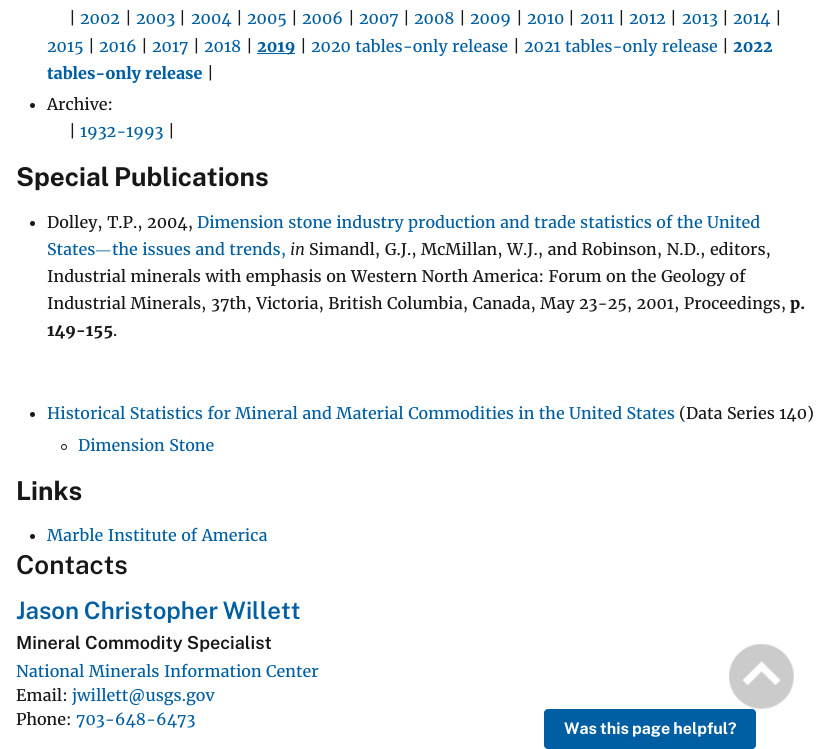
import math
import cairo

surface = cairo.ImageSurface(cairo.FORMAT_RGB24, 834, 749)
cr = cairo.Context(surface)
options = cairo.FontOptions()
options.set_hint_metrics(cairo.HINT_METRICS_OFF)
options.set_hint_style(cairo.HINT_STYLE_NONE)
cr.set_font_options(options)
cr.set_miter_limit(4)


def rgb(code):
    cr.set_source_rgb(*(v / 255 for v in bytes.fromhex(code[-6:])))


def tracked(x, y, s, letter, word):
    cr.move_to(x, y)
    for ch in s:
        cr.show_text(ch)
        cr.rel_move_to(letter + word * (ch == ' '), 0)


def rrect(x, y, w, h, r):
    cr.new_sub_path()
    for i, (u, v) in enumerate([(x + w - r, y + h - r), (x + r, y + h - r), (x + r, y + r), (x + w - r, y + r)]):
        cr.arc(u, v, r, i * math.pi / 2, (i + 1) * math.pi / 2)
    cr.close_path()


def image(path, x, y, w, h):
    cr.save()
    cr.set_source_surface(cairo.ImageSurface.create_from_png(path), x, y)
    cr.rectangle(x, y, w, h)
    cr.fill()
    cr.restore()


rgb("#ffffff")
cr.paint()
rgb("#005ea2")
cr.rectangle(257, 53, 38, 1)
cr.fill()
rgb("#171717")
cr.arc(32.5, 105.5, 2.5, 0, 2 * math.pi)
cr.fill()
cr.arc(32.5, 223.5, 2.5, 0, 2 * math.pi)
cr.fill()
cr.arc(32.5, 414.5, 2.5, 0, 2 * math.pi)
cr.fill()
cr.arc(64, 447, 2.5, 0, 2 * math.pi)
cr.set_line_width(1)
cr.stroke()
cr.arc(32.5, 536.5, 2.5, 0, 2 * math.pi)
cr.fill()
image("img/1.png", 729, 644, 65, 65)
rgb("#005ea2")
rrect(544, 709, 212, 40, 4)
cr.fill()
cr.select_font_face("Merriweather")
cr.set_font_size(16)
rgb("#171717")
cr.move_to(69, 24)
cr.show_text("|")
rgb("#005ea2")
cr.move_to(80, 24)
cr.show_text("2002")
rgb("#171717")
cr.move_to(125, 24)
cr.show_text("|")
rgb("#005ea2")
cr.move_to(136, 24)
cr.show_text("2003")
rgb("#171717")
cr.move_to(179, 24)
cr.show_text("|")
rgb("#005ea2")
cr.move_to(191, 24)
cr.show_text("2004")
rgb("#171717")
cr.move_to(236, 24)
cr.show_text("|")
rgb("#005ea2")
cr.move_to(247, 24)
cr.show_text("2005")
rgb("#171717")
cr.move_to(291, 24)
cr.show_text("|")
rgb("#005ea2")
cr.move_to(302, 24)
cr.show_text("2006")
rgb("#171717")
cr.move_to(348, 24)
cr.show_text("|")
rgb("#005ea2")
cr.move_to(359, 24)
cr.show_text("2007")
rgb("#171717")
cr.move_to(403, 24)
cr.show_text("|")
rgb("#005ea2")
cr.move_to(414, 24)
cr.show_text("2008")
rgb("#171717")
cr.move_to(459, 24)
cr.show_text("|")
rgb("#005ea2")
cr.move_to(470, 24)
cr.show_text("2009")
rgb("#171717")
cr.move_to(516, 24)
cr.show_text("|")
rgb("#005ea2")
cr.move_to(527, 24)
cr.show_text("2010")
rgb("#171717")
cr.move_to(568, 24)
cr.show_text("|")
rgb("#005ea2")
cr.move_to(580, 24)
cr.show_text("2011")
rgb("#171717")
cr.move_to(618, 24)
cr.show_text("|")
rgb("#005ea2")
cr.move_to(629, 24)
cr.show_text("2012")
rgb("#171717")
cr.move_to(670, 24)
cr.show_text("|")
rgb("#005ea2")
cr.move_to(682, 24)
cr.show_text("2013")
rgb("#171717")
cr.move_to(722, 24)
cr.show_text("|")
rgb("#005ea2")
cr.move_to(733, 24)
cr.show_text("2014")
rgb("#171717")
cr.move_to(775, 24)
cr.show_text("|")
rgb("#005ea2")
cr.move_to(47, 52)
cr.show_text("2015")
rgb("#171717")
cr.move_to(88, 52)
cr.show_text("|")
rgb("#005ea2")
cr.move_to(99, 52)
cr.show_text("2016")
rgb("#171717")
cr.move_to(141, 52)
cr.show_text("|")
rgb("#005ea2")
cr.move_to(152, 52)
cr.show_text("2017")
rgb("#171717")
cr.move_to(193, 52)
cr.show_text("|")
rgb("#005ea2")
cr.move_to(204, 52)
cr.show_text("2018")
rgb("#171717")
cr.move_to(246, 52)
cr.show_text("|")
cr.select_font_face("Merriweather", cairo.FONT_SLANT_NORMAL, cairo.FONT_WEIGHT_BOLD)
rgb("#005ea2")
cr.move_to(257, 52)
cr.show_text("2019")
cr.select_font_face("Merriweather")
rgb("#171717")
cr.move_to(300, 52)
cr.show_text("|")
rgb("#005ea2")
cr.move_to(311, 52)
cr.show_text("2020 tables-only release")
rgb("#171717")
cr.move_to(513, 52)
cr.show_text("|")
rgb("#005ea2")
cr.move_to(524, 52)
cr.show_text("2021 tables-only release")
rgb("#171717")
cr.move_to(722, 52)
cr.show_text("|")
cr.select_font_face("Merriweather", cairo.FONT_SLANT_NORMAL, cairo.FONT_WEIGHT_BOLD)
rgb("#005ea2")
cr.move_to(733, 52)
cr.show_text("2022")
cr.move_to(47, 79)
cr.show_text("tables-only release")
cr.select_font_face("Merriweather")
rgb("#171717")
for x, y, s in [
    (207, 79, "|"),
    (47, 110, "Archive:"),
    (69, 137, "|"),
]:
    cr.move_to(x, y)
    cr.show_text(s)
rgb("#005ea2")
cr.move_to(80, 137)
cr.show_text("1932-1993")
rgb("#171717")
cr.move_to(168, 137)
cr.show_text("|")
cr.select_font_face("Public Sans", cairo.FONT_SLANT_NORMAL, cairo.FONT_WEIGHT_BOLD)
cr.set_font_size(26)
tracked(16, 186, "Special Publications", 0, -1)
cr.select_font_face("Merriweather")
cr.set_font_size(16)
cr.move_to(47, 228)
cr.show_text("Dolley, T.P., 2004,")
rgb("#005ea2")
cr.move_to(197, 228)
cr.show_text("Dimension stone industry production and trade statistics of the United")
cr.move_to(47, 255)
cr.show_text("States")
cr.select_font_face("Caladea")
cr.move_to(95, 255)
cr.show_text("―")
cr.select_font_face("Merriweather")
cr.move_to(112, 255)
cr.show_text("the issues and trends,")
cr.select_font_face("Merriweather", cairo.FONT_SLANT_ITALIC)
rgb("#171717")
cr.move_to(290, 255)
cr.show_text("in")
cr.select_font_face("Merriweather")
for x, y, s in [
    (309, 255, "Simandl, G.J., McMillan, W.J., and Robinson, N.D., editors,"),
    (47, 282, "Industrial minerals with emphasis on Western North America: Forum on the Geology of"),
    (47, 309, "Industrial Minerals, 37th, Victoria, British Columbia, Canada, May 23-25, 2001, Proceedings,"),
]:
    cr.move_to(x, y)
    cr.show_text(s)
cr.select_font_face("Merriweather", cairo.FONT_SLANT_NORMAL, cairo.FONT_WEIGHT_BOLD)
cr.move_to(790, 309)
cr.show_text("p.")
cr.move_to(47, 336)
cr.show_text("149-155")
cr.select_font_face("Merriweather")
cr.move_to(113, 336)
cr.show_text(".")
rgb("#005ea2")
cr.move_to(47, 419)
cr.show_text("Historical Statistics for Mineral and Material Commodities in the United States")
rgb("#171717")
cr.move_to(679, 419)
cr.show_text("(Data Series 140)")
rgb("#005ea2")
cr.move_to(78, 451)
cr.show_text("Dimension Stone")
cr.select_font_face("Public Sans", cairo.FONT_SLANT_NORMAL, cairo.FONT_WEIGHT_BOLD)
cr.set_font_size(26)
rgb("#171717")
cr.move_to(16, 500)
cr.show_text("Links")
cr.select_font_face("Merriweather")
cr.set_font_size(16)
rgb("#005ea2")
cr.move_to(47, 541)
cr.show_text("Marble Institute of America")
cr.select_font_face("Public Sans SemiBold")
cr.set_font_size(26)
rgb("#171717")
cr.move_to(16, 574)
cr.show_text("Contacts")
cr.set_font_size(24)
rgb("#005ea2")
tracked(16, 619, "Jason Christopher Willett", 0, -1)
cr.set_font_size(18)
rgb("#171717")
cr.move_to(16, 649)
cr.show_text("Mineral Commodity Specialist")
cr.select_font_face("Merriweather")
cr.set_font_size(16)
rgb("#005ea2")
cr.move_to(16, 677)
cr.show_text("National Minerals Information Center")
rgb("#171717")
cr.move_to(16, 701)
cr.show_text("Email:")
rgb("#005ea2")
cr.move_to(72, 701)
cr.show_text("jwillett@usgs.gov")
rgb("#171717")
cr.move_to(16, 725)
cr.show_text("Phone:")
rgb("#005ea2")
cr.move_to(76, 725)
cr.show_text("703-648-6473")
cr.select_font_face("Public Sans", cairo.FONT_SLANT_NORMAL, cairo.FONT_WEIGHT_BOLD)
rgb("#ffffff")
tracked(564, 734, "Was this page helpful?", 0, -0.5)
surface.write_to_png("page.png")
